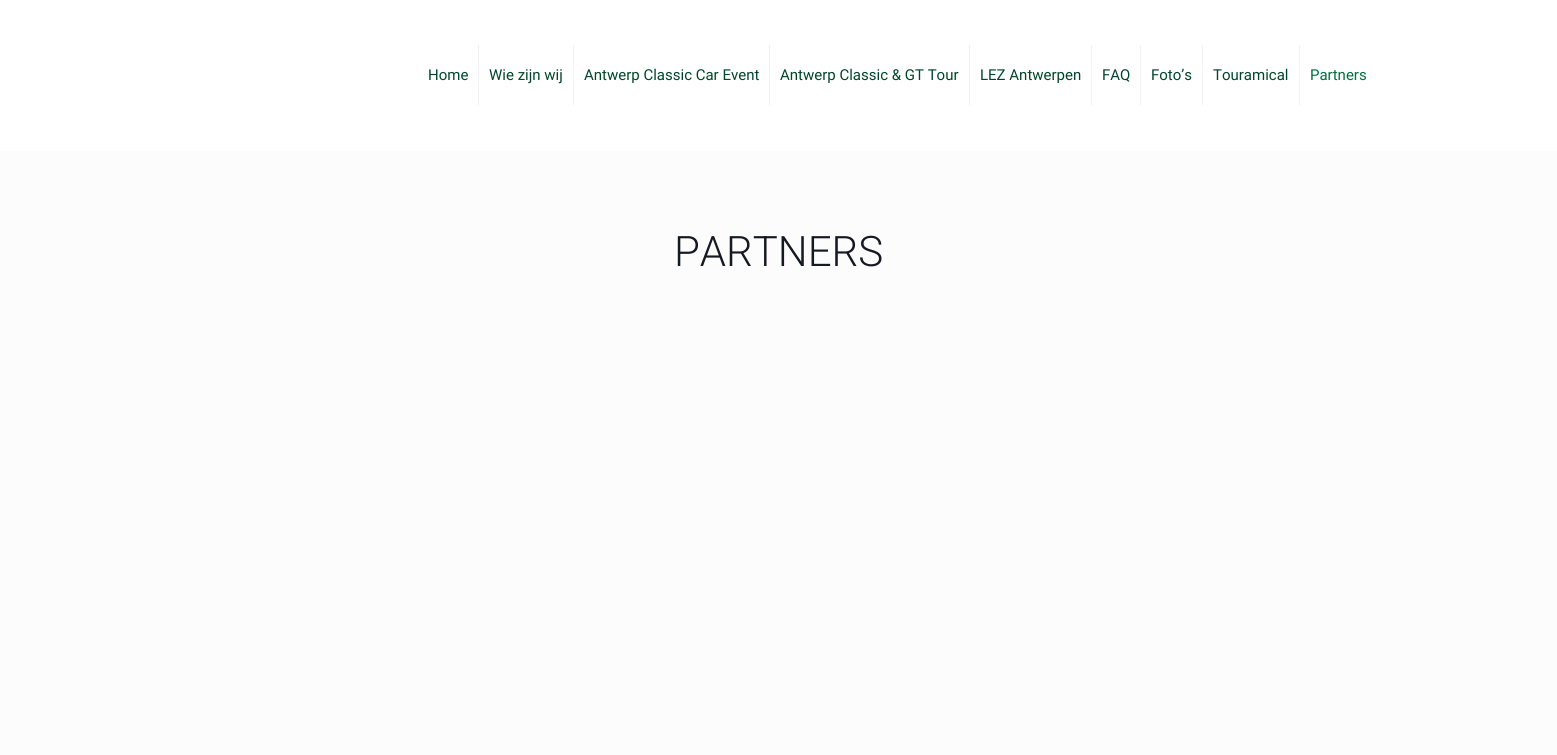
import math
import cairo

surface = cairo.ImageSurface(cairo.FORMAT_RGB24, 1557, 755)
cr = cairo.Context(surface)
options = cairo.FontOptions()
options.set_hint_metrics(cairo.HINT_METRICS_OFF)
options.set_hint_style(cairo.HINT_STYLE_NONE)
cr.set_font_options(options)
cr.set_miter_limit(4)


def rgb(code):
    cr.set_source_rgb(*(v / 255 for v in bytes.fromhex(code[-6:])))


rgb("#fcfcfc")
cr.paint()
for x, y, w, h, color in [
    (0, 0, 1557, 151, "#ffffff"),
    (478, 45, 1, 60, "#f2f2f2"),
    (573, 45, 1, 60, "#f2f2f2"),
    (769, 45, 1, 60, "#f2f2f2"),
    (969, 45, 1, 60, "#f2f2f2"),
    (1091, 45, 1, 60, "#f2f2f2"),
    (1140, 45, 1, 60, "#f2f2f2"),
    (1202, 45, 1, 60, "#f2f2f2"),
    (1299, 45, 1, 60, "#f2f2f2"),
]:
    rgb(color)
    cr.rectangle(x, y, w, h)
    cr.fill()
cr.select_font_face("Roboto")
cr.set_font_size(15)
rgb("#004628")
for x, y, s in [
    (428, 80, "Home"),
    (489, 80, "Wie zijn wij"),
    (584, 80, "Antwerp Classic Car Event"),
    (780, 80, "Antwerp Classic & GT Tour"),
    (980, 80, "LEZ Antwerpen"),
    (1102, 80, "FAQ"),
    (1151, 80, "Foto’s"),
    (1213, 80, "Touramical"),
]:
    cr.move_to(x, y)
    cr.show_text(s)
rgb("#016e3f")
cr.move_to(1310, 80)
cr.show_text("Partners")
cr.select_font_face("Roboto Light")
cr.set_font_size(42)
rgb("#161922")
cr.move_to(674, 266)
cr.show_text("PARTNERS")
surface.write_to_png("page.png")
